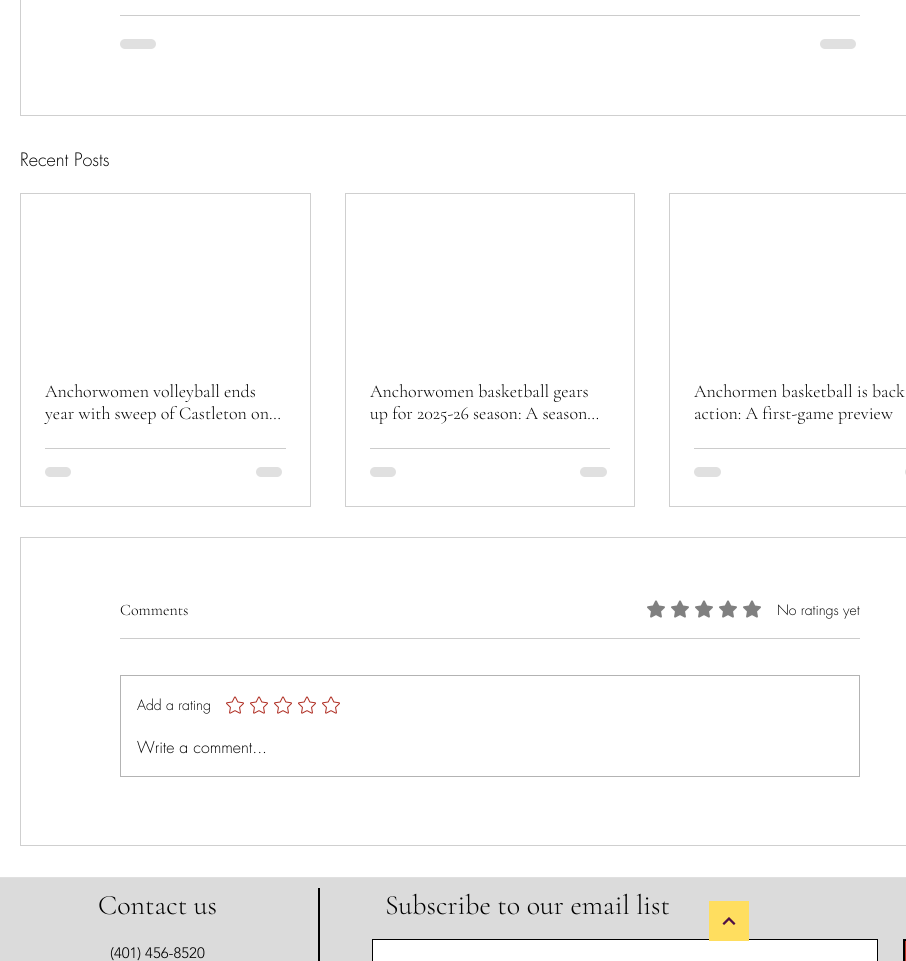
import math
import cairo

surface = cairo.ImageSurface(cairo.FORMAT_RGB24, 906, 961)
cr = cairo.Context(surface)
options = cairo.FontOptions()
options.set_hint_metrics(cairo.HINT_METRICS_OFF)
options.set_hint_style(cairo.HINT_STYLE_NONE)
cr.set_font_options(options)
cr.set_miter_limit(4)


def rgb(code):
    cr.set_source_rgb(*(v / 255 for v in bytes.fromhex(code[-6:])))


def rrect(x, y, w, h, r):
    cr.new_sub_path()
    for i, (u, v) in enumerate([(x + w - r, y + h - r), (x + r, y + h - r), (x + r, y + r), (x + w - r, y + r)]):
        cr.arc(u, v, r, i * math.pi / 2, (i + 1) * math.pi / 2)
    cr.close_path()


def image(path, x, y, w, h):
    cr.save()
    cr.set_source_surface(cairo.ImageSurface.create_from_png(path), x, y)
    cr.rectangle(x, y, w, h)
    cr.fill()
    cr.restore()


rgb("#ffffff")
cr.paint()
cr.rectangle(20.5, -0.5, 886, 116)
rgb("#cfcfcf")
cr.set_line_width(1)
cr.stroke()
rgb("#cccccc")
cr.rectangle(120, 15, 740, 1)
cr.fill()
rgb("#e0e0e0")
rrect(120, 39, 36, 10, 5)
cr.fill()
rrect(820, 39, 36, 10, 5)
cr.fill()
cr.rectangle(20.5, 193.5, 290, 313)
rgb("#cfcfcf")
cr.stroke()
rgb("#cccccc")
cr.rectangle(45, 448, 241, 1)
cr.fill()
rgb("#e0e0e0")
rrect(45, 467, 26, 10, 5)
cr.fill()
rrect(256, 467, 26, 10, 5)
cr.fill()
cr.rectangle(345.5, 193.5, 289, 313)
rgb("#cfcfcf")
cr.stroke()
rgb("#cccccc")
cr.rectangle(370, 448, 240, 1)
cr.fill()
rgb("#e0e0e0")
rrect(370, 467, 26, 10, 5)
cr.fill()
rrect(580, 467, 27, 10, 5)
cr.fill()
cr.rectangle(669.5, 193.5, 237, 313)
rgb("#cfcfcf")
cr.stroke()
rgb("#cccccc")
cr.rectangle(694, 448, 212, 1)
cr.fill()
rgb("#e0e0e0")
rrect(694, 467, 27, 10, 5)
cr.fill()
rrect(905, 467, 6, 10, 5)
cr.fill()
cr.rectangle(20.5, 537.5, 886, 308)
rgb("#cfcfcf")
cr.stroke()
image("img/1.png", 647, 600, 18, 18)
image("img/1.png", 671, 600, 18, 18)
image("img/1.png", 695, 600, 18, 18)
image("img/1.png", 719, 600, 18, 18)
image("img/1.png", 743, 600, 18, 18)
rgb("#cccccc")
cr.rectangle(120, 638, 740, 1)
cr.fill()
cr.rectangle(120.5, 675.5, 739, 101)
rgb("#b3b3b3")
cr.stroke()
image("img/2.png", 226, 696, 18, 18)
image("img/2.png", 250, 696, 18, 18)
image("img/2.png", 274, 696, 18, 18)
image("img/2.png", 298, 696, 18, 18)
image("img/2.png", 322, 696, 18, 18)
for x, y, w, h, color in [
    (0, 878, 906, 83, "#dbdbdb"),
    (0, 877, 906, 1, "#e0e0e0"),
    (318, 888, 2, 73, "#000000"),
]:
    rgb(color)
    cr.rectangle(x, y, w, h)
    cr.fill()
rgb("#ffffff")
cr.rectangle(372.5, 939.5, 505, 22)
cr.fill_preserve()
rgb("#000000")
cr.stroke()
rgb("#c33225")
cr.rectangle(904, 940, 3, 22)
cr.fill_preserve()
rgb("#000000")
cr.set_line_width(2)
cr.stroke()
rgb("#ffde5f")
cr.rectangle(709, 901, 40, 40)
cr.fill()
image("img/3.png", 722, 917, 14, 8)
cr.select_font_face("futura Light")
cr.set_font_size(18)
rgb("#000000")
cr.move_to(20, 166)
cr.show_text("Recent Posts")
cr.select_font_face("Cormorant Garamond Light")
for x, y, s in [
    (45, 397, "Anchorwomen volleyball ends"),
    (45, 419, "year with sweep of Castleton on…"),
    (370, 397, "Anchorwomen basketball gears"),
    (370, 419, "up for 2025-26 season: A season…"),
    (694, 397, "Anchormen basketball is back"),
    (694, 419, "action: A first-game preview"),
]:
    cr.move_to(x, y)
    cr.show_text(s)
cr.set_font_size(16)
cr.move_to(120, 615)
cr.show_text("Comments")
cr.select_font_face("futura Light")
cr.set_font_size(14)
cr.move_to(777, 615)
cr.show_text("No ratings yet")
cr.move_to(137, 710)
cr.show_text("Add a rating")
cr.set_font_size(16)
cr.move_to(137, 753)
cr.show_text("Write a comment...")
cr.select_font_face("Cormorant Garamond Light")
cr.set_font_size(28)
cr.move_to(98, 914)
cr.show_text("Contact us")
cr.move_to(385, 914)
cr.show_text("Subscribe to our email list")
cr.select_font_face("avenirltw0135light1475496 Light")
cr.set_font_size(15)
cr.move_to(110, 958)
cr.show_text("(401) 456-8520")
surface.write_to_png("page.png")
